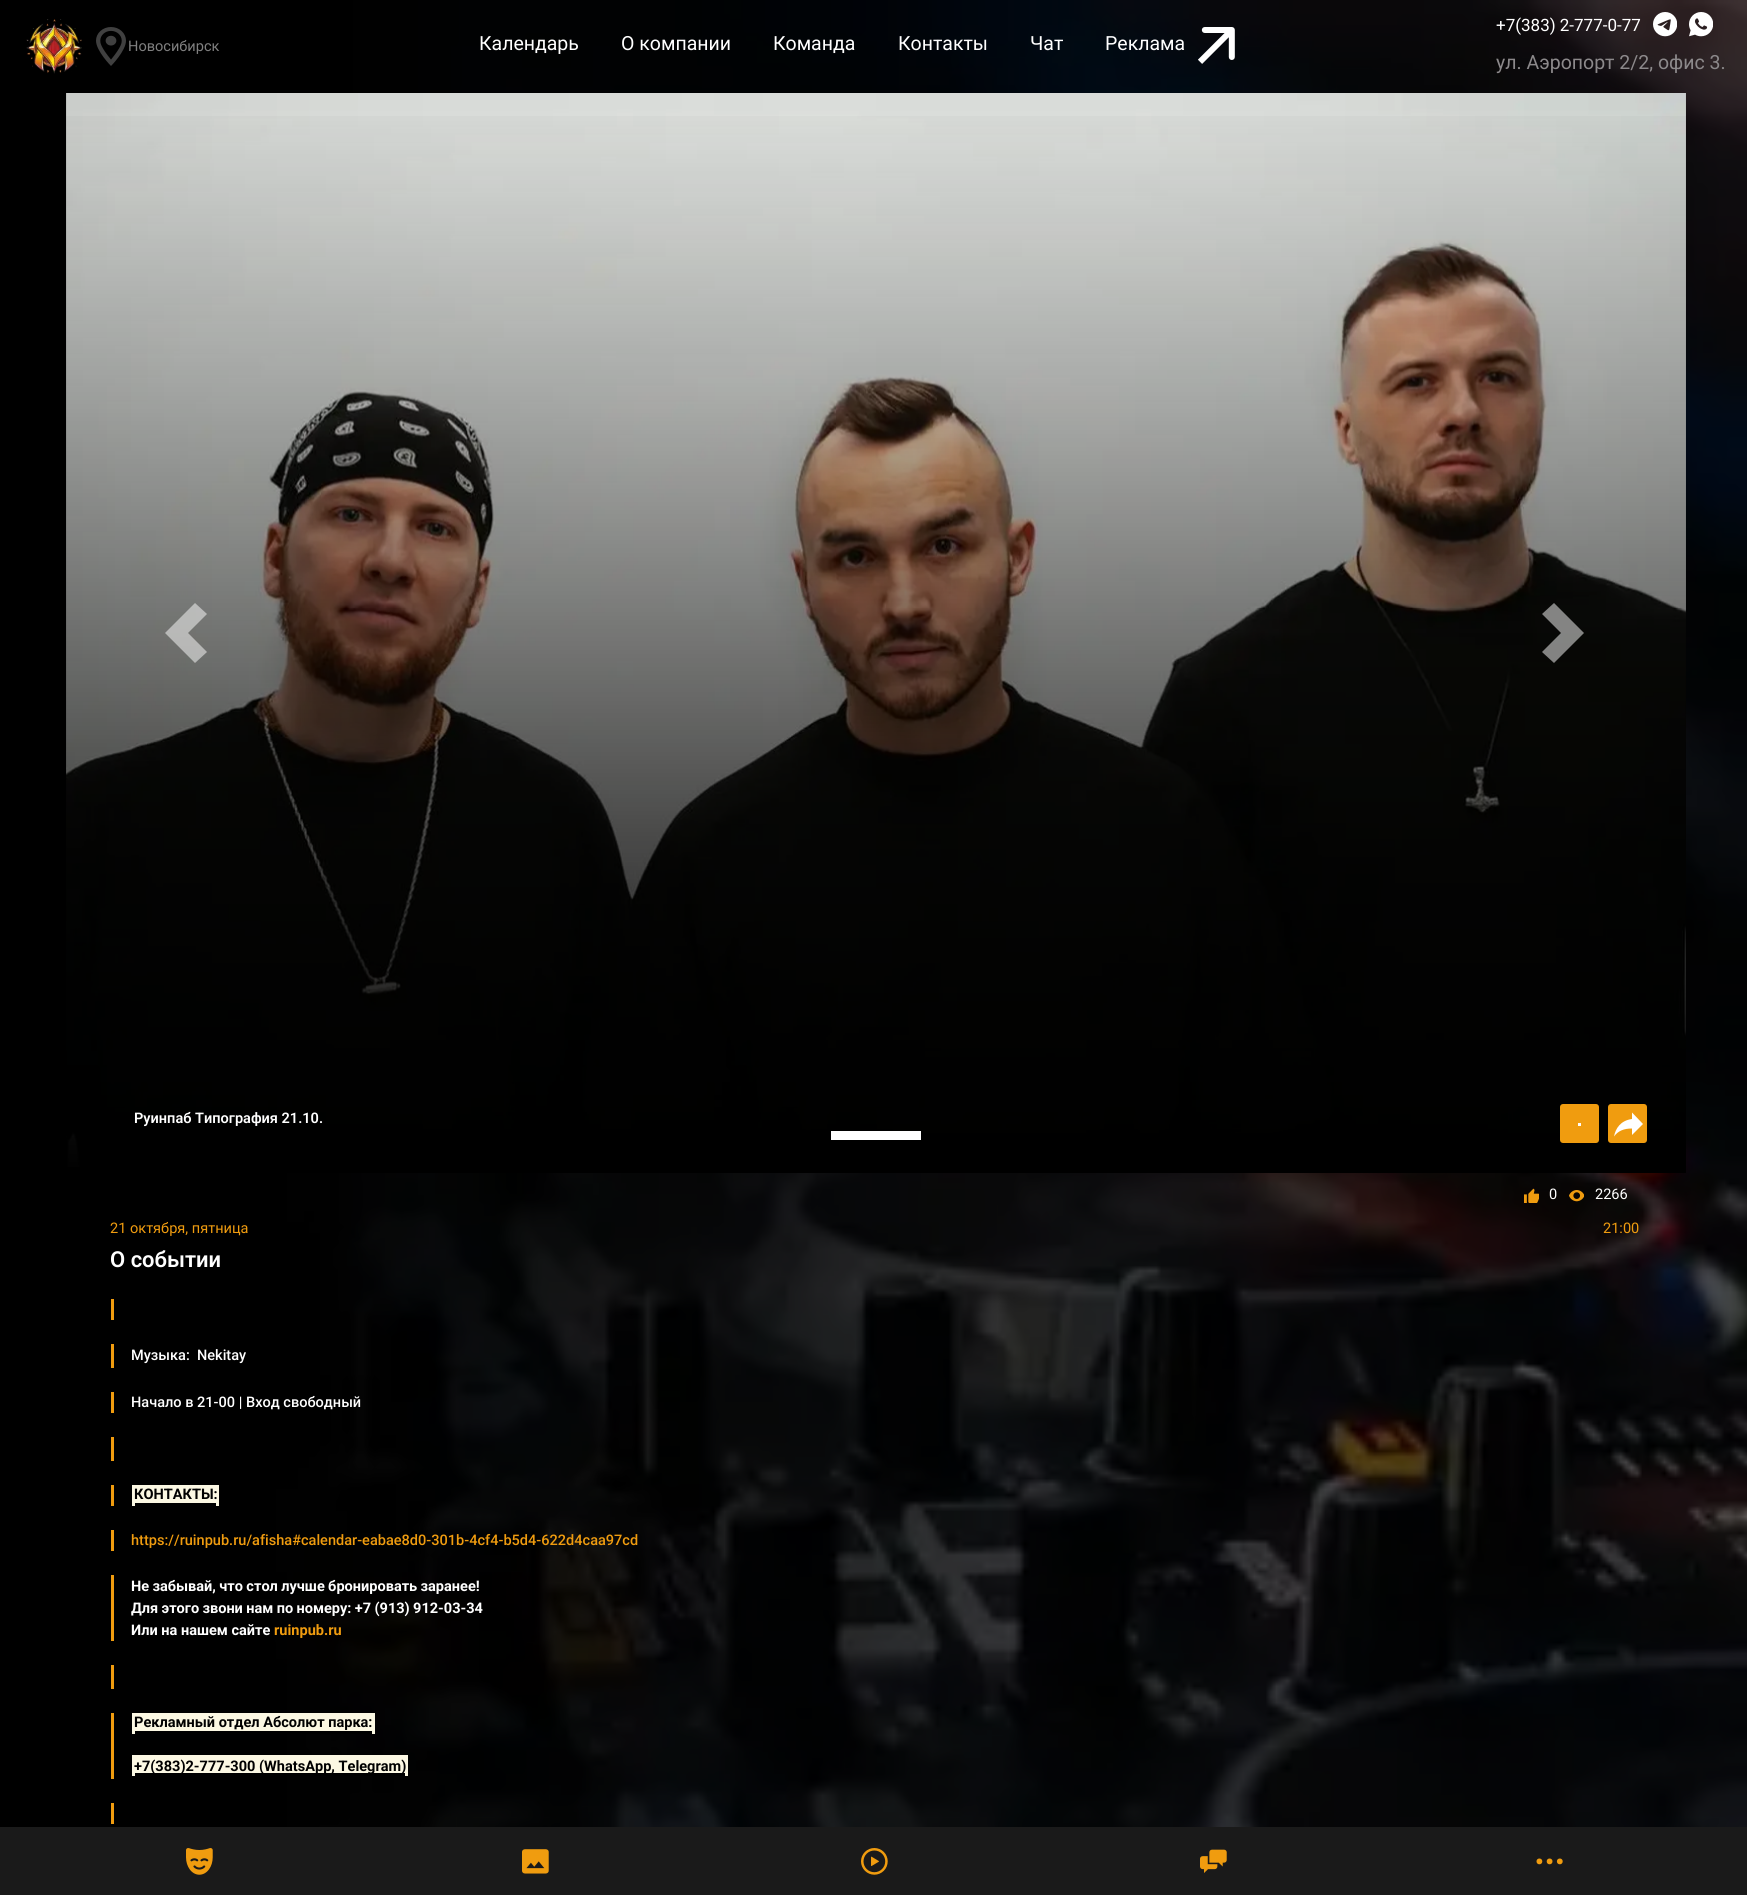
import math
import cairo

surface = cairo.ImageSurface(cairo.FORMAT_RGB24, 1747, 1895)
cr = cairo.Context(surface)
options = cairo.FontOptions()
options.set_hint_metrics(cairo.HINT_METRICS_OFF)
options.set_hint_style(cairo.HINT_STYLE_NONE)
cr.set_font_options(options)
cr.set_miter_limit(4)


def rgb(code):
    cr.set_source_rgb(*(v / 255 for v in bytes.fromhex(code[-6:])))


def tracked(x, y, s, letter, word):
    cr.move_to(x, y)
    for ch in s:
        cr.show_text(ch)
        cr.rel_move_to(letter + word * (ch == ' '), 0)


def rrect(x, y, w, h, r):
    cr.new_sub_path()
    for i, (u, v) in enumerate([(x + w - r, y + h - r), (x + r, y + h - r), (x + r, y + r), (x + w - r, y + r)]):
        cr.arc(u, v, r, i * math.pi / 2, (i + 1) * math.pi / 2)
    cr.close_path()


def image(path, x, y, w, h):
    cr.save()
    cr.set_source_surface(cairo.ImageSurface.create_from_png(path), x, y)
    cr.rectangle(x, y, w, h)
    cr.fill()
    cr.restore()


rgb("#ffffff")
cr.paint()
image("img/1.png", 0, 0, 1747, 1827)
image("img/2.png", 26, 19, 56, 55)
image("img/3.png", 96, 27, 30, 39)
image("img/4.png", 1198, 27, 37, 37)
image("img/5.png", 1653, 12, 24, 25)
image("img/6.png", 1689, 12, 24, 25)
image("img/7.png", 66, 93, 1620, 1074)
gradient = cairo.LinearGradient(876, 1173, 876, 93)
gradient.add_color_stop_rgba(0, 0, 0, 0, 1)
gradient.add_color_stop_rgba(1, 0, 0, 0, 0)
cr.set_source(gradient)
cr.rectangle(66, 116, 1620, 1057)
cr.fill()
cr.set_source_rgba(1, 1, 1, 0.5)
cr.new_path()
cr.move_to(195, 603)
cr.line_to(165, 633)
cr.line_to(195, 663)
cr.line_to(207, 652)
cr.line_to(188, 633)
cr.line_to(207, 614)
cr.close_path()
cr.fill()
cr.new_path()
cr.move_to(1554, 603)
cr.line_to(1542, 614)
cr.line_to(1561, 633)
cr.line_to(1542, 652)
cr.line_to(1554, 663)
cr.line_to(1584, 633)
cr.close_path()
cr.fill()
rgb("#ffffff")
cr.rectangle(831, 1131, 90, 9)
cr.fill()
rgb("#f09c0f")
rrect(1560, 1104, 39, 39, 3)
cr.fill()
rgb("#fffcf8")
cr.rectangle(1578, 1123, 3, 3)
cr.fill()
rgb("#f09c0f")
rrect(1608, 1104, 39, 39, 3)
cr.fill()
rgb("#ffffff")
cr.new_path()
cr.move_to(1643, 1124)
cr.line_to(1632, 1112.5)
cr.line_to(1632, 1119)
cr.curve_to(1620.5, 1120.5, 1615.5, 1128.5, 1614, 1136.5)
cr.curve_to(1618, 1131, 1623.5, 1128.5, 1632, 1128.5)
cr.line_to(1632, 1135)
cr.close_path()
cr.fill()
image("img/8.png", 1524, 1188, 15, 15)
image("img/9.png", 1569, 1190, 15, 12)
for x, y, w, h, color in [
    (111, 1299, 3, 21, "#f09c0f"),
    (111, 1344, 3, 24, "#f09c0f"),
    (111, 1392, 3, 21, "#f09c0f"),
    (111, 1437, 3, 24, "#f09c0f"),
    (111, 1485, 3, 21, "#f09c0f"),
    (132, 1485, 87, 21, "#fcf8e3"),
    (135, 1503, 81, 3, "#000000"),
    (111, 1530, 3, 21, "#f09c0f"),
    (111, 1575, 3, 66, "#f09c0f"),
    (111, 1665, 3, 24, "#f09c0f"),
    (111, 1713, 3, 66, "#f09c0f"),
    (132, 1713, 243, 21, "#fcf8e3"),
    (135, 1731, 237, 3, "#000000"),
    (132, 1755, 276, 21, "#fcf8e3"),
    (135, 1773, 270, 3, "#000000"),
    (111, 1803, 3, 21, "#f09c0f"),
    (0, 1827, 1747, 68, "#1a1a1a"),
]:
    rgb(color)
    cr.rectangle(x, y, w, h)
    cr.fill()
image("img/10.png", 186, 1848, 27, 27)
image("img/11.png", 522, 1849, 27, 25)
image("img/12.png", 861, 1848, 27, 27)
image("img/13.png", 1200, 1849, 27, 24)
rgb("#f09c0f")
cr.arc(1539.4, 1861.4, 2.9, 0, 2 * math.pi)
cr.fill()
cr.arc(1549.6, 1861.4, 2.9, 0, 2 * math.pi)
cr.fill()
cr.arc(1559.8, 1861.4, 2.9, 0, 2 * math.pi)
cr.fill()
cr.select_font_face("Roboto")
cr.set_font_size(14.55)
rgb("#808080")
cr.move_to(128, 51)
cr.show_text("Новосибирск")
cr.set_font_size(19.5)
rgb("#ffffff")
for x, y, s in [
    (479, 50, "Календарь"),
    (621, 50, "О компании"),
    (773, 50, "Команда"),
    (898, 50, "Контакты"),
    (1030, 50, "Чат"),
    (1105, 50, "Реклама"),
]:
    cr.move_to(x, y)
    cr.show_text(s)
cr.set_font_size(17)
cr.move_to(1496, 31)
cr.show_text("+7(383) 2-777-0-77")
cr.set_font_size(19.5)
rgb("#8c898b")
cr.move_to(1496, 69)
cr.show_text("ул. Аэропорт 2/2, офис 3.")
cr.select_font_face("Roboto SemiBold")
cr.set_font_size(14.55)
rgb("#ffffff")
cr.move_to(134, 1123)
cr.show_text("Руинпаб Типография 21.10.")
cr.select_font_face("Roboto")
cr.move_to(1549, 1199)
cr.show_text("0")
cr.move_to(1595, 1199)
cr.show_text("2266")
rgb("#f09c0f")
cr.move_to(110, 1233)
cr.show_text("21 октября, пятница")
cr.move_to(1603, 1233)
cr.show_text("21:00")
cr.select_font_face("Roboto SemiBold")
cr.set_font_size(22)
rgb("#ffffff")
cr.move_to(110, 1267)
cr.show_text("О событии")
cr.select_font_face("Roboto Medium")
cr.set_font_size(14.55)
cr.move_to(131, 1360)
cr.show_text("Музыка:  Nekitay")
cr.move_to(131, 1407)
cr.show_text("Начало в 21-00 | Вход свободный")
cr.select_font_face("Roboto", cairo.FONT_SLANT_NORMAL, cairo.FONT_WEIGHT_BOLD)
rgb("#000000")
cr.move_to(134, 1499)
cr.show_text("КОНТАКТЫ:")
cr.select_font_face("Roboto Medium")
rgb("#f09c0f")
cr.move_to(131, 1545)
cr.show_text("https://ruinpub.ru/afisha#calendar-eabae8d0-301b-4cf4-b5d4-622d4caa97cd")
cr.select_font_face("Roboto", cairo.FONT_SLANT_NORMAL, cairo.FONT_WEIGHT_BOLD)
rgb("#ffffff")
tracked(131, 1591, "Не забывай, что стол лучше бронировать заранее!", 0, -0.25)
tracked(131, 1613, "Для этого звони нам по номеру: +7 (913) 912-03-34", 0, -0.25)
cr.move_to(131, 1635)
cr.show_text("Или на нашем сайте")
rgb("#f09c0f")
cr.move_to(274, 1635)
cr.show_text("ruinpub.ru")
rgb("#000000")
cr.move_to(134, 1727)
cr.show_text("Рекламный отдел Абсолют парка:")
cr.move_to(134, 1771)
cr.show_text("+7(383)2-777-300 (WhatsApp, Telegram)")
surface.write_to_png("page.png")
